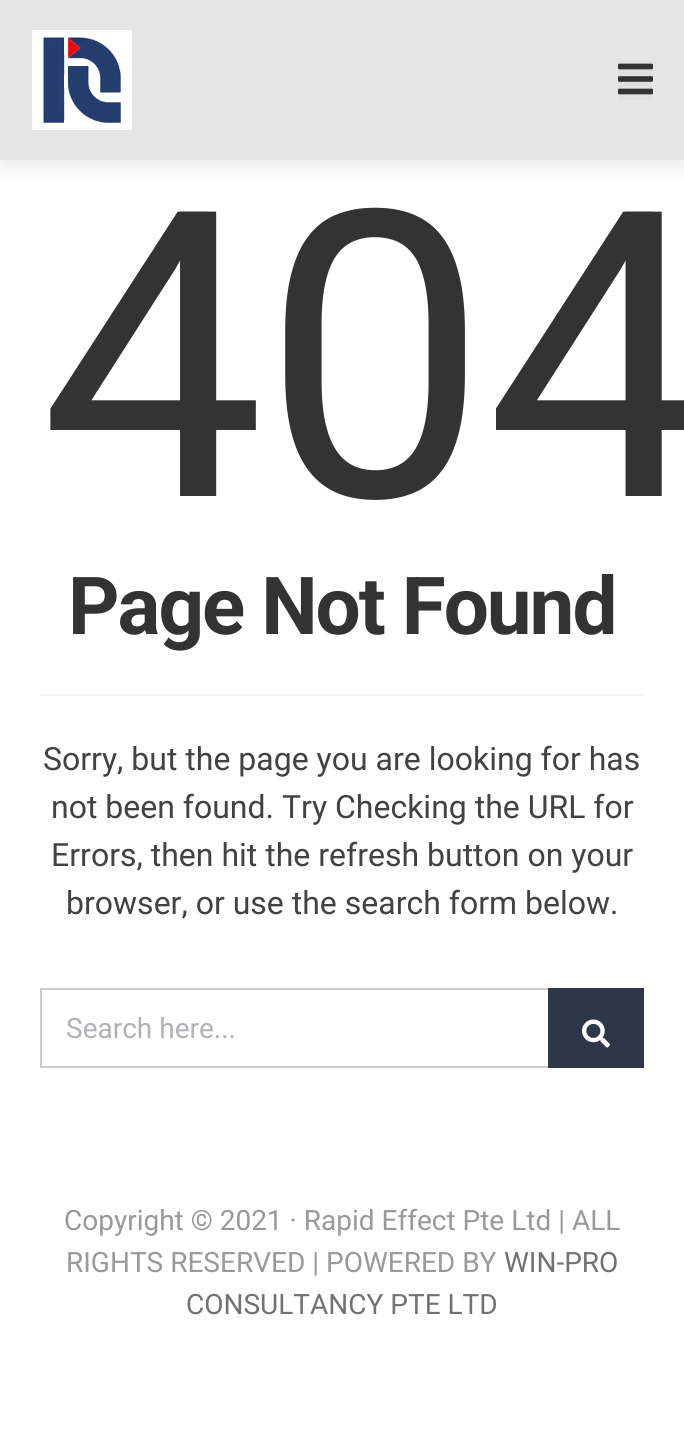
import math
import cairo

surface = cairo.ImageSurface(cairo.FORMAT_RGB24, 684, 1434)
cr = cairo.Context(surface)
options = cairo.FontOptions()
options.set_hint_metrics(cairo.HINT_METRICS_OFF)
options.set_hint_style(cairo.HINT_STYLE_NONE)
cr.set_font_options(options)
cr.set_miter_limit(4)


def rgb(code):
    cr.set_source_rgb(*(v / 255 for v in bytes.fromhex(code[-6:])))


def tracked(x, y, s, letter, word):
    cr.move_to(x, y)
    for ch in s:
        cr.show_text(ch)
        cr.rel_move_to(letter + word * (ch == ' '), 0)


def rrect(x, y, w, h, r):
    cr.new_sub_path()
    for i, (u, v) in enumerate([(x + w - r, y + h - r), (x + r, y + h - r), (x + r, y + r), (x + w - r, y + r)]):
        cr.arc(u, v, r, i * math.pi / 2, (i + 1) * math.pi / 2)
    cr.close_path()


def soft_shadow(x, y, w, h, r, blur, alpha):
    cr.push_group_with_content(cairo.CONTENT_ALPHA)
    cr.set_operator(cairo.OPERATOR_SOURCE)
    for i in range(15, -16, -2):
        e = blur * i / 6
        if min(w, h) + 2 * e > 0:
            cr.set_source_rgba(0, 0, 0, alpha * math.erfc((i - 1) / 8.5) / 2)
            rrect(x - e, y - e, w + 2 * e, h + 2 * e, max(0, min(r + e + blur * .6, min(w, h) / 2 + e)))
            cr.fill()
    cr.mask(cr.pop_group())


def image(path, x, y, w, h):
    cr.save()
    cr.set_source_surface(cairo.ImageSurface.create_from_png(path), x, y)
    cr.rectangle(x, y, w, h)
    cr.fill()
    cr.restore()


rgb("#ffffff")
cr.paint()
rgb("#000000")
soft_shadow(0, 8, 684, 160, 0, 10, 0.08)
rgb("#e5e5e5")
cr.rectangle(0, 0, 684, 160)
cr.fill()
image("img/1.png", 32, 30, 100, 100)
rgb("#e0e0e0")
cr.rectangle(618, 60, 34, 40)
cr.fill()
image("img/2.png", 618, 63, 35, 32)
rgb("#f2f2f2")
cr.rectangle(40, 694, 604, 2)
cr.fill()
cr.rectangle(41, 989, 602, 78)
rgb("#cccccc")
cr.stroke()
rgb("#2d3748")
cr.rectangle(548, 988, 96, 80)
cr.fill()
image("img/3.png", 582, 1019, 28, 29)
cr.select_font_face("Roboto")
cr.set_font_size(400)
rgb("#333333")
tracked(40, 496, "404", -2, 0)
cr.select_font_face("Roboto", cairo.FONT_SLANT_NORMAL, cairo.FONT_WEIGHT_BOLD)
cr.set_font_size(80)
tracked(68, 634, "Page Not Found", -2, 0)
cr.select_font_face("Roboto")
cr.set_font_size(32)
rgb("#424242")
for x, y, s in [
    (43, 770, "Sorry, but the page you are looking for has"),
    (51, 818, "not been found. Try Checking the URL for"),
    (51, 866, "Errors, then hit the refresh button on your"),
    (66, 914, "browser, or use the search form below."),
]:
    cr.move_to(x, y)
    cr.show_text(s)
cr.set_font_size(28)
rgb("#b2b2b6")
cr.move_to(66, 1038)
cr.show_text("Search here...")
rgb("#999999")
cr.move_to(64, 1230)
cr.show_text("Copyright © 2021 · Rapid Effect Pte Ltd | ALL")
cr.move_to(66, 1272)
cr.show_text("RIGHTS RESERVED | POWERED BY")
rgb("#727272")
cr.move_to(504, 1272)
cr.show_text("WIN-PRO")
cr.move_to(186, 1314)
cr.show_text("CONSULTANCY PTE LTD")
surface.write_to_png("page.png")
